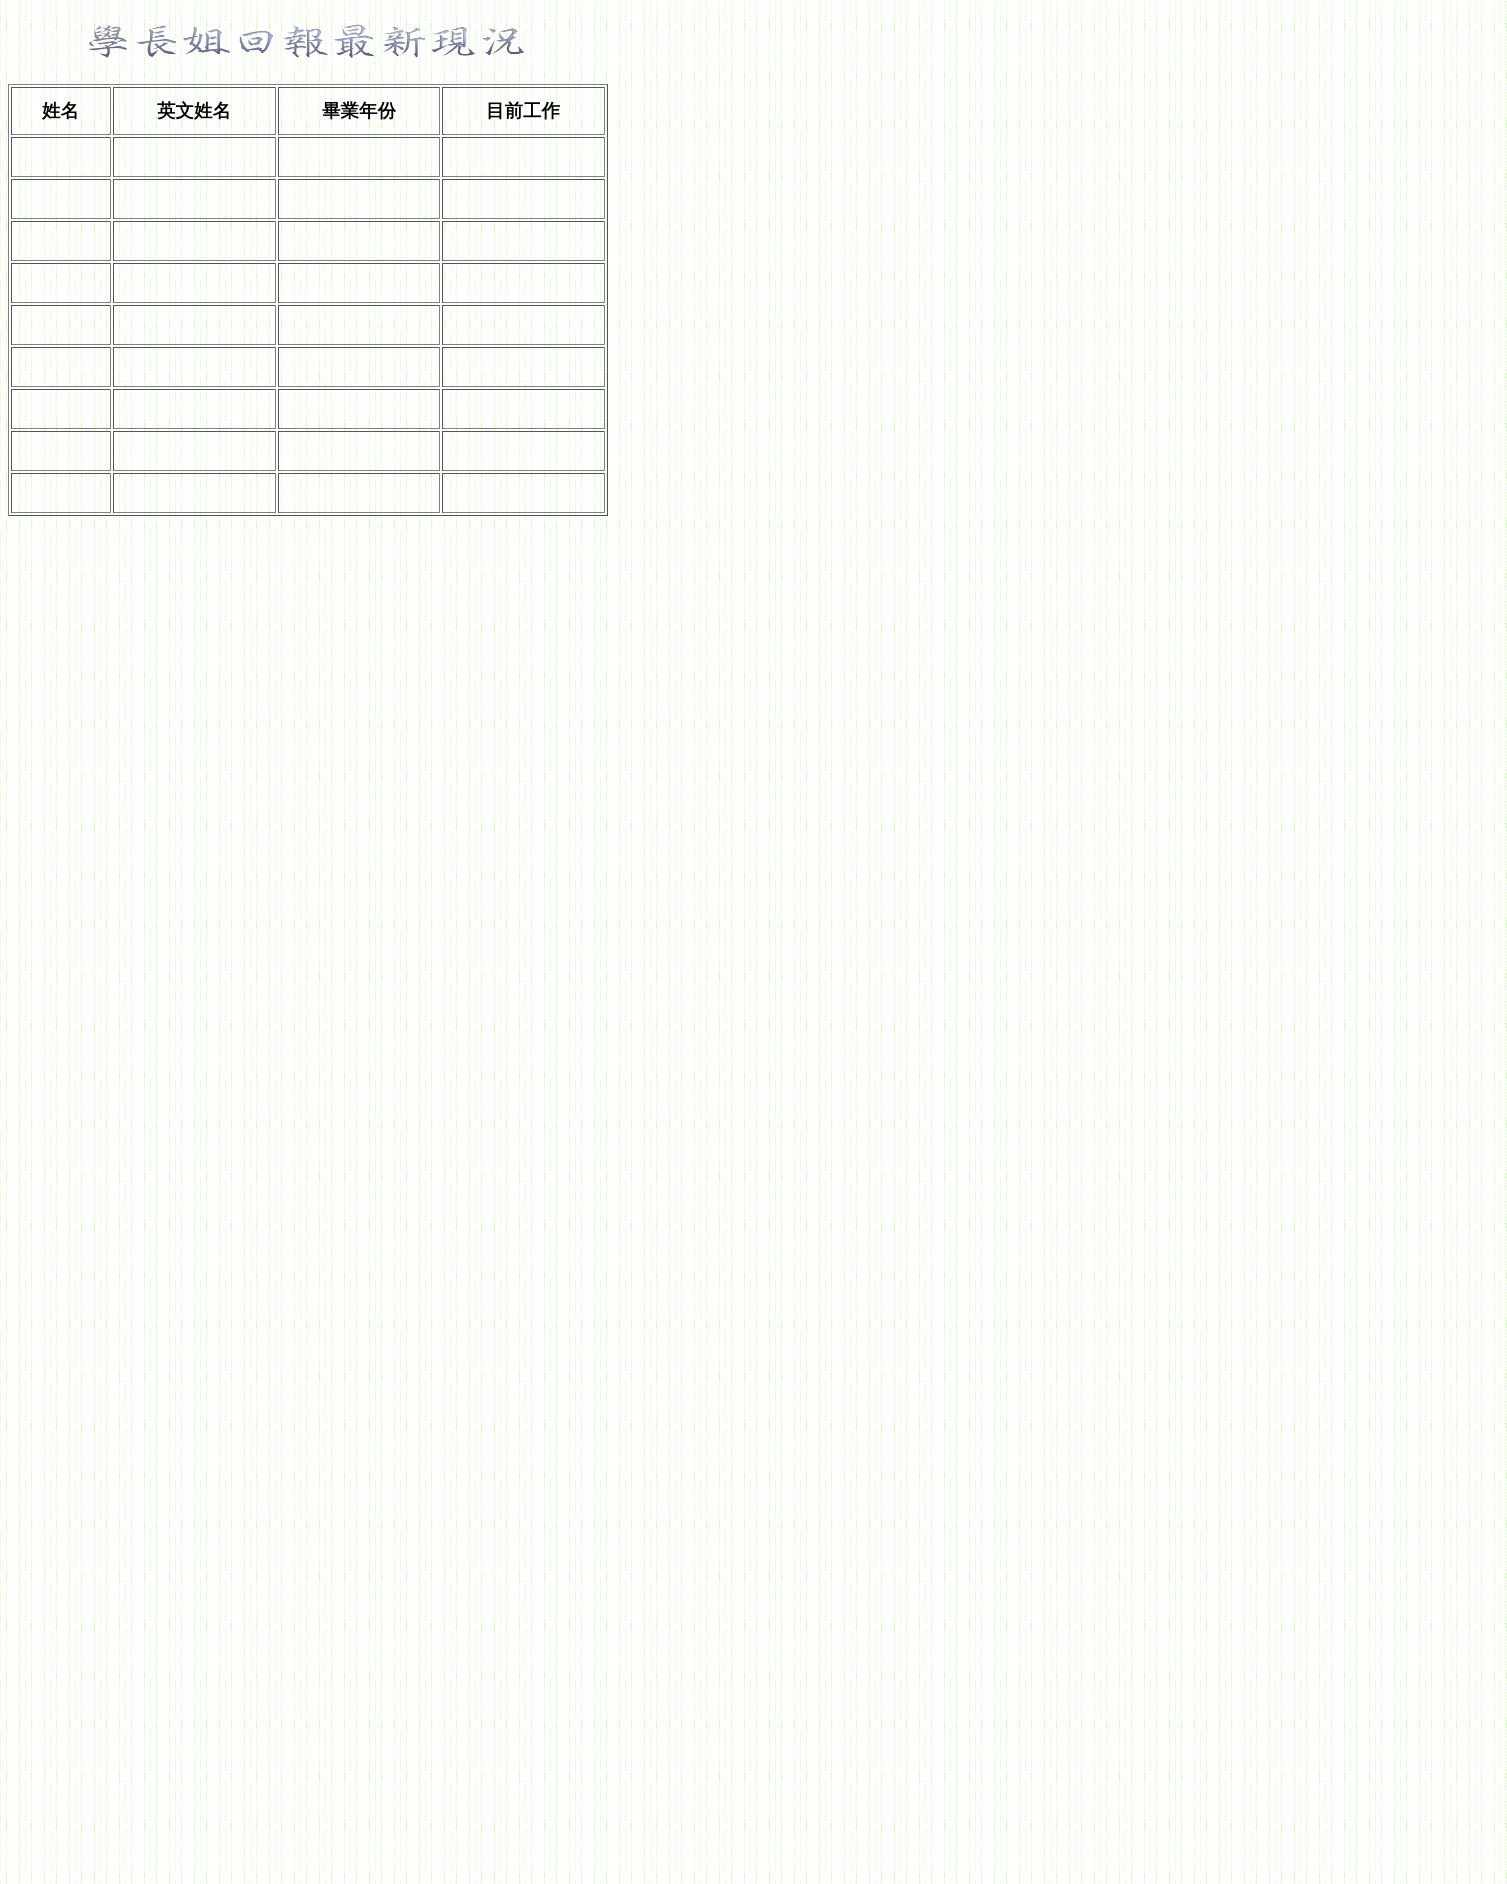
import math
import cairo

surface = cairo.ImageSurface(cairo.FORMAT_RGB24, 1507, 1884)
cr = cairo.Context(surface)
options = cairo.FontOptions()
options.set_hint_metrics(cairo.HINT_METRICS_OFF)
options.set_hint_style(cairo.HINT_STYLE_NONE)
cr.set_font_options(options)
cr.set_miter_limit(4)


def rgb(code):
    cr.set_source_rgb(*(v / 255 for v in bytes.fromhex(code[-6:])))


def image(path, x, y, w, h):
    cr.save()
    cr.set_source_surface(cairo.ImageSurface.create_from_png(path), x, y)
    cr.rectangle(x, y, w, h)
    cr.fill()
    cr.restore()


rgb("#ffffff")
cr.paint()
image("img/1.png", 0, 1, 1507, 1883)
image("img/2.png", 88, 24, 436, 34)
for x, y, w, h, color in [
    (8, 84, 600, 1, "#808080"),
    (607, 84, 1, 432, "#555555"),
    (8, 515, 600, 1, "#555555"),
    (8, 84, 1, 432, "#808080"),
    (11, 87, 100, 1, "#555555"),
    (110, 87, 1, 48, "#808080"),
    (11, 134, 100, 1, "#808080"),
    (11, 87, 1, 48, "#555555"),
    (113, 87, 163, 1, "#555555"),
    (275, 87, 1, 48, "#808080"),
    (113, 134, 163, 1, "#808080"),
    (113, 87, 1, 48, "#555555"),
    (278, 87, 162, 1, "#555555"),
    (439, 87, 1, 48, "#808080"),
    (278, 134, 162, 1, "#808080"),
    (278, 87, 1, 48, "#555555"),
    (442, 87, 163, 1, "#555555"),
    (604, 87, 1, 48, "#808080"),
    (442, 134, 163, 1, "#808080"),
    (442, 87, 1, 48, "#555555"),
    (11, 137, 100, 1, "#555555"),
    (110, 137, 1, 40, "#808080"),
    (11, 176, 100, 1, "#808080"),
    (11, 137, 1, 40, "#555555"),
    (113, 137, 163, 1, "#555555"),
    (275, 137, 1, 40, "#808080"),
    (113, 176, 163, 1, "#808080"),
    (113, 137, 1, 40, "#555555"),
    (278, 137, 162, 1, "#555555"),
    (439, 137, 1, 40, "#808080"),
    (278, 176, 162, 1, "#808080"),
    (278, 137, 1, 40, "#555555"),
    (442, 137, 163, 1, "#555555"),
    (604, 137, 1, 40, "#808080"),
    (442, 176, 163, 1, "#808080"),
    (442, 137, 1, 40, "#555555"),
    (11, 179, 100, 1, "#555555"),
    (110, 179, 1, 40, "#808080"),
    (11, 218, 100, 1, "#808080"),
    (11, 179, 1, 40, "#555555"),
    (113, 179, 163, 1, "#555555"),
    (275, 179, 1, 40, "#808080"),
    (113, 218, 163, 1, "#808080"),
    (113, 179, 1, 40, "#555555"),
    (278, 179, 162, 1, "#555555"),
    (439, 179, 1, 40, "#808080"),
    (278, 218, 162, 1, "#808080"),
    (278, 179, 1, 40, "#555555"),
    (442, 179, 163, 1, "#555555"),
    (604, 179, 1, 40, "#808080"),
    (442, 218, 163, 1, "#808080"),
    (442, 179, 1, 40, "#555555"),
    (11, 221, 100, 1, "#555555"),
    (110, 221, 1, 40, "#808080"),
    (11, 260, 100, 1, "#808080"),
    (11, 221, 1, 40, "#555555"),
    (113, 221, 163, 1, "#555555"),
    (275, 221, 1, 40, "#808080"),
    (113, 260, 163, 1, "#808080"),
    (113, 221, 1, 40, "#555555"),
    (278, 221, 162, 1, "#555555"),
    (439, 221, 1, 40, "#808080"),
    (278, 260, 162, 1, "#808080"),
    (278, 221, 1, 40, "#555555"),
    (442, 221, 163, 1, "#555555"),
    (604, 221, 1, 40, "#808080"),
    (442, 260, 163, 1, "#808080"),
    (442, 221, 1, 40, "#555555"),
    (11, 263, 100, 1, "#555555"),
    (110, 263, 1, 40, "#808080"),
    (11, 302, 100, 1, "#808080"),
    (11, 263, 1, 40, "#555555"),
    (113, 263, 163, 1, "#555555"),
    (275, 263, 1, 40, "#808080"),
    (113, 302, 163, 1, "#808080"),
    (113, 263, 1, 40, "#555555"),
    (278, 263, 162, 1, "#555555"),
    (439, 263, 1, 40, "#808080"),
    (278, 302, 162, 1, "#808080"),
    (278, 263, 1, 40, "#555555"),
    (442, 263, 163, 1, "#555555"),
    (604, 263, 1, 40, "#808080"),
    (442, 302, 163, 1, "#808080"),
    (442, 263, 1, 40, "#555555"),
    (11, 305, 100, 1, "#555555"),
    (110, 305, 1, 40, "#808080"),
    (11, 344, 100, 1, "#808080"),
    (11, 305, 1, 40, "#555555"),
    (113, 305, 163, 1, "#555555"),
    (275, 305, 1, 40, "#808080"),
    (113, 344, 163, 1, "#808080"),
    (113, 305, 1, 40, "#555555"),
    (278, 305, 162, 1, "#555555"),
    (439, 305, 1, 40, "#808080"),
    (278, 344, 162, 1, "#808080"),
    (278, 305, 1, 40, "#555555"),
    (442, 305, 163, 1, "#555555"),
    (604, 305, 1, 40, "#808080"),
    (442, 344, 163, 1, "#808080"),
    (442, 305, 1, 40, "#555555"),
    (11, 347, 100, 1, "#555555"),
    (110, 347, 1, 40, "#808080"),
    (11, 386, 100, 1, "#808080"),
    (11, 347, 1, 40, "#555555"),
    (113, 347, 163, 1, "#555555"),
    (275, 347, 1, 40, "#808080"),
    (113, 386, 163, 1, "#808080"),
    (113, 347, 1, 40, "#555555"),
    (278, 347, 162, 1, "#555555"),
    (439, 347, 1, 40, "#808080"),
    (278, 386, 162, 1, "#808080"),
    (278, 347, 1, 40, "#555555"),
    (442, 347, 163, 1, "#555555"),
    (604, 347, 1, 40, "#808080"),
    (442, 386, 163, 1, "#808080"),
    (442, 347, 1, 40, "#555555"),
    (11, 389, 100, 1, "#555555"),
    (110, 389, 1, 40, "#808080"),
    (11, 428, 100, 1, "#808080"),
    (11, 389, 1, 40, "#555555"),
    (113, 389, 163, 1, "#555555"),
    (275, 389, 1, 40, "#808080"),
    (113, 428, 163, 1, "#808080"),
    (113, 389, 1, 40, "#555555"),
    (278, 389, 162, 1, "#555555"),
    (439, 389, 1, 40, "#808080"),
    (278, 428, 162, 1, "#808080"),
    (278, 389, 1, 40, "#555555"),
    (442, 389, 163, 1, "#555555"),
    (604, 389, 1, 40, "#808080"),
    (442, 428, 163, 1, "#808080"),
    (442, 389, 1, 40, "#555555"),
    (11, 431, 100, 1, "#555555"),
    (110, 431, 1, 40, "#808080"),
    (11, 470, 100, 1, "#808080"),
    (11, 431, 1, 40, "#555555"),
    (113, 431, 163, 1, "#555555"),
    (275, 431, 1, 40, "#808080"),
    (113, 470, 163, 1, "#808080"),
    (113, 431, 1, 40, "#555555"),
    (278, 431, 162, 1, "#555555"),
    (439, 431, 1, 40, "#808080"),
    (278, 470, 162, 1, "#808080"),
    (278, 431, 1, 40, "#555555"),
    (442, 431, 163, 1, "#555555"),
    (604, 431, 1, 40, "#808080"),
    (442, 470, 163, 1, "#808080"),
    (442, 431, 1, 40, "#555555"),
    (11, 473, 100, 1, "#555555"),
    (110, 473, 1, 40, "#808080"),
    (11, 512, 100, 1, "#808080"),
    (11, 473, 1, 40, "#555555"),
    (113, 473, 163, 1, "#555555"),
    (275, 473, 1, 40, "#808080"),
    (113, 512, 163, 1, "#808080"),
    (113, 473, 1, 40, "#555555"),
    (278, 473, 162, 1, "#555555"),
    (439, 473, 1, 40, "#808080"),
    (278, 512, 162, 1, "#808080"),
    (278, 473, 1, 40, "#555555"),
    (442, 473, 163, 1, "#555555"),
    (604, 473, 1, 40, "#808080"),
    (442, 512, 163, 1, "#808080"),
    (442, 473, 1, 40, "#555555"),
]:
    rgb(color)
    cr.rectangle(x, y, w, h)
    cr.fill()
cr.select_font_face("WenQuanYi Zen Hei", cairo.FONT_SLANT_NORMAL, cairo.FONT_WEIGHT_BOLD)
cr.set_font_size(18.5)
rgb("#000000")
for x, y, s in [
    (42, 117, "姓名"),
    (157, 117, "英文姓名"),
    (322, 117, "畢業年份"),
    (486, 117, "目前工作"),
]:
    cr.move_to(x, y)
    cr.show_text(s)
surface.write_to_png("page.png")
